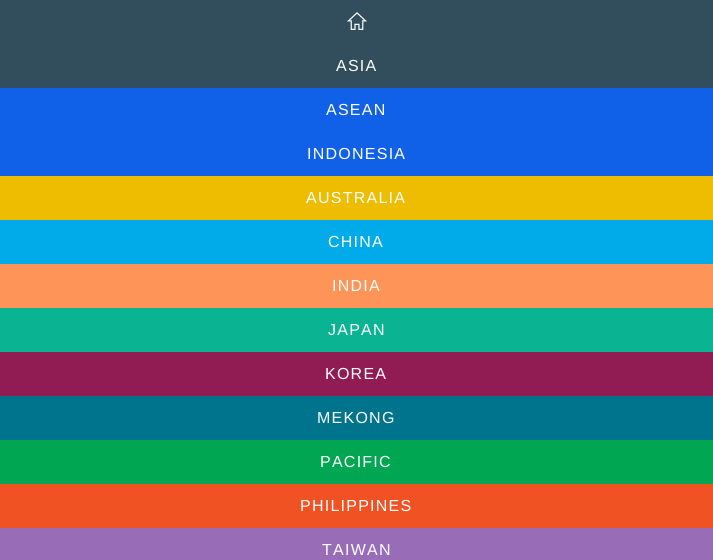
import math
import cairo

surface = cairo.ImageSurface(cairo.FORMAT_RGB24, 713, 560)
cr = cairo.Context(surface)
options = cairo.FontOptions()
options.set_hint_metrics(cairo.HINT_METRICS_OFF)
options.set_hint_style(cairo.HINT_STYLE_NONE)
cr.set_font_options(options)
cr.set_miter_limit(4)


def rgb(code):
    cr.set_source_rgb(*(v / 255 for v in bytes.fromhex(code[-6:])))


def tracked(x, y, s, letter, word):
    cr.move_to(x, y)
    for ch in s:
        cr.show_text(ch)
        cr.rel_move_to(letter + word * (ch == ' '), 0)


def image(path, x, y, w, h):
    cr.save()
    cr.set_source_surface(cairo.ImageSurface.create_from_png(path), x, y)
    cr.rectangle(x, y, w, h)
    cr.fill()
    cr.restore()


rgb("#324d5c")
cr.paint()
image("img/1.png", 347, 12, 20, 18)
for x, y, w, h, color in [
    (0, 88, 713, 88, "#1061e8"),
    (0, 176, 713, 44, "#eebc00"),
    (0, 220, 713, 44, "#01aae9"),
    (0, 264, 713, 44, "#ff9459"),
    (0, 308, 713, 44, "#0ab493"),
    (0, 352, 713, 44, "#911c54"),
    (0, 396, 713, 44, "#00738d"),
    (0, 440, 713, 44, "#00a651"),
    (0, 484, 713, 44, "#f05223"),
    (0, 528, 713, 32, "#996cb7"),
]:
    rgb(color)
    cr.rectangle(x, y, w, h)
    cr.fill()
cr.select_font_face("Liberation Sans")
cr.set_font_size(16)
rgb("#ffffff")
for x, y, s in [
    (336, 71, "ASIA"),
    (326, 115, "ASEAN"),
    (307, 159, "INDONESIA"),
    (306, 203, "AUSTRALIA"),
    (328, 247, "CHINA"),
    (332, 291, "INDIA"),
    (328, 335, "JAPAN"),
    (325, 379, "KOREA"),
    (317, 423, "MEKONG"),
    (320, 467, "PACIFIC"),
    (300, 511, "PHILIPPINES"),
    (322, 555, "TAIWAN"),
]:
    tracked(x, y, s, 1.25, 0)
surface.write_to_png("page.png")
